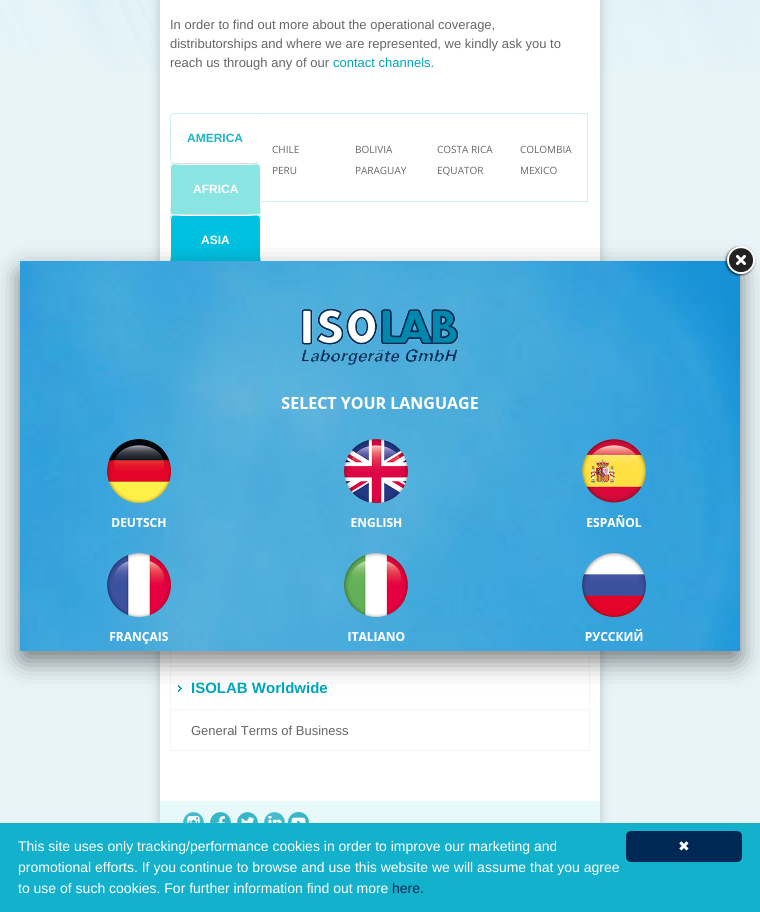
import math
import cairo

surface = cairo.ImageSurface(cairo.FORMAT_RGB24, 760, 912)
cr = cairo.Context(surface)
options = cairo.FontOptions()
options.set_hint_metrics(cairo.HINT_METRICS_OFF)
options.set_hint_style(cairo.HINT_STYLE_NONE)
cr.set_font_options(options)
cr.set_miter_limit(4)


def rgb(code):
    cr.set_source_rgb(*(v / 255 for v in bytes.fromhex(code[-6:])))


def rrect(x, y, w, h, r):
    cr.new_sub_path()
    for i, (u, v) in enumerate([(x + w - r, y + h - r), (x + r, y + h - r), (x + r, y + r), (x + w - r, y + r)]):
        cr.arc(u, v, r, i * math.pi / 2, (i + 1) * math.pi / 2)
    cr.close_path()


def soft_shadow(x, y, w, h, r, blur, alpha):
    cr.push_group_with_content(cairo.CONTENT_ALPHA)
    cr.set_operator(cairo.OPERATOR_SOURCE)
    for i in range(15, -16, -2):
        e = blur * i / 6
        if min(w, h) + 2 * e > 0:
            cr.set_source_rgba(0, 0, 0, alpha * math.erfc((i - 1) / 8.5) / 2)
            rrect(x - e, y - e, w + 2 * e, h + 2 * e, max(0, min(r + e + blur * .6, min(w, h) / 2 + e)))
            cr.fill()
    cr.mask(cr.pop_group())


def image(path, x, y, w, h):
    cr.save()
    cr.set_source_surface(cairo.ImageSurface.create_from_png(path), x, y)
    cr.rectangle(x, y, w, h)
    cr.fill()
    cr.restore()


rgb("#e8f4f7")
cr.paint()
image("img/1.png", 0, 0, 760, 72)
rgb("#5d5f5f")
soft_shadow(157, -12, 446, 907, 0, 4, 0.2)
rgb("#ffffff")
cr.rectangle(160, 0, 440, 801)
cr.fill()
cr.rectangle(254.5, 113.5, 333, 88)
rgb("#ccf3f2")
cr.set_line_width(1)
cr.stroke()
rgb("#8ae4e2")
rrect(170, 164, 91, 51, 3)
cr.fill()
cr.new_path()
cr.move_to(260, 214)
cr.line_to(259.5, 214)
cr.curve_to(257.5, 215.5, 194.5, 214.5, 187, 214.5)
cr.line_to(173, 214.5)
cr.line_to(171, 214)
rgb("#dddddd")
cr.stroke()
cr.new_path()
cr.move_to(171, 214)
cr.curve_to(169, 211.5, 170.5, 207.5, 170.5, 204.5)
cr.line_to(170.5, 174.5)
cr.curve_to(170.5, 160.5, 170.5, 164.5, 187, 164.5)
cr.line_to(244, 164.5)
cr.curve_to(260.5, 164.5, 260.5, 160.5, 260.5, 174.5)
cr.line_to(260.5, 204.5)
cr.curve_to(260.5, 207.5, 262, 211.5, 260, 214)
rgb("#ffffff")
cr.stroke()
rrect(170, 113, 89, 51, 3)
cr.fill()
rgb("#ccf3f2")
cr.new_path()
cr.move_to(173, 113)
cr.line_to(171, 114)
cr.line_to(172, 115)
cr.line_to(173, 114)
cr.line_to(256, 114)
cr.curve_to(257, 114, 259, 115, 259, 116)
cr.curve_to(259, 114, 258, 113, 256, 113)
cr.close_path()
cr.fill()
rgb("#dddddd")
cr.new_path()
cr.move_to(173, 164)
cr.line_to(256, 164)
cr.curve_to(258, 164, 259, 163, 259, 161)
cr.curve_to(259, 162, 257, 163, 256, 163)
cr.line_to(173, 163)
cr.line_to(172, 162)
cr.line_to(171, 163)
cr.close_path()
cr.fill()
rgb("#ccf3f2")
cr.new_path()
cr.move_to(170, 116)
cr.curve_to(170, 122, 169, 161, 171, 163)
cr.line_to(172, 162)
cr.line_to(171, 161)
cr.line_to(171, 116)
cr.line_to(172, 115)
cr.line_to(171, 114)
cr.close_path()
cr.fill()
rgb("#00c1e0")
rrect(170, 215, 91, 50, 3)
cr.fill()
cr.new_path()
cr.move_to(171, 264)
cr.curve_to(169, 261.5, 170.5, 258, 170.5, 254.5)
cr.line_to(170.5, 225.5)
cr.curve_to(170.5, 211.5, 170.5, 215.5, 187, 215.5)
cr.line_to(244, 215.5)
cr.curve_to(260.5, 215.5, 260.5, 211.5, 260.5, 225.5)
cr.line_to(260.5, 254.5)
cr.curve_to(260.5, 258, 262, 261.5, 260, 264)
rgb("#ffffff")
cr.stroke()
for x, y, w, h, color in [
    (589, 651, 1, 100, "#eff7fa"),
    (170, 651, 1, 100, "#eff7fa"),
    (171, 666, 418, 1, "#eff7fa"),
]:
    rgb(color)
    cr.rectangle(x, y, w, h)
    cr.fill()
image("img/2.png", 178, 685, 4, 7)
for x, y, w, h, color in [
    (171, 709, 418, 1, "#eff7fa"),
    (171, 750, 418, 1, "#eff7fa"),
    (160, 801, 440, 22, "#e8f9fb"),
]:
    rgb(color)
    cr.rectangle(x, y, w, h)
    cr.fill()
image("img/3.png", 183, 812, 21, 11)
image("img/4.png", 210, 812, 21, 11)
image("img/5.png", 237, 812, 21, 11)
image("img/6.png", 264, 812, 21, 11)
image("img/7.png", 288, 812, 21, 11)
rgb("#000000")
soft_shadow(20, 271, 720, 390, 4, 12.5, 0.5)
image("img/9.png", 20, 261, 720, 390)
image("img/8.png", 724, 245, 32, 32)
rgb("#13b1cb")
cr.rectangle(0, 823, 760, 89)
cr.fill()
rgb("#002855")
rrect(626, 831, 116, 31, 5)
cr.fill()
cr.select_font_face("Liberation Sans")
cr.set_font_size(13)
rgb("#666666")
for x, y, s in [
    (170, 29, "In order to find out more about the operational coverage,"),
    (170, 48, "distributorships and where we are represented, we kindly ask you to"),
    (170, 67, "reach us through any of our"),
]:
    cr.move_to(x, y)
    cr.show_text(s)
rgb("#00a5b8")
cr.move_to(333, 67)
cr.show_text("contact channels.")
cr.select_font_face("Liberation Sans", cairo.FONT_SLANT_NORMAL, cairo.FONT_WEIGHT_BOLD)
cr.set_font_size(12)
rgb("#1db6c9")
cr.move_to(187, 142)
cr.show_text("AMERICA")
rgb("#ffffff")
cr.move_to(193, 193)
cr.show_text("AFRICA")
cr.move_to(201, 244)
cr.show_text("ASIA")
cr.select_font_face("Open Sans")
cr.set_font_size(10)
rgb("#666666")
for x, y, s in [
    (272, 153, "CHILE"),
    (272, 174, "PERU"),
    (355, 153, "BOLIVIA"),
    (355, 174, "PARAGUAY"),
    (437, 153, "COSTA RICA"),
    (437, 174, "EQUATOR"),
    (520, 153, "COLOMBIA"),
    (520, 174, "MEXICO"),
]:
    cr.move_to(x, y)
    cr.show_text(s)
cr.select_font_face("Liberation Sans", cairo.FONT_SLANT_NORMAL, cairo.FONT_WEIGHT_BOLD)
cr.set_font_size(15)
rgb("#00a5b8")
cr.move_to(191, 693)
cr.show_text("ISOLAB Worldwide")
cr.select_font_face("Liberation Sans")
cr.set_font_size(13)
rgb("#666666")
cr.move_to(191, 735)
cr.show_text("General Terms of Business")
cr.set_font_size(14)
rgb("#ffffff")
for x, y, s in [
    (18, 851, "This site uses only tracking/performance cookies in order to improve our marketing and"),
    (18, 872, "promotional efforts. If you continue to browse and use this website we will assume that you agree"),
    (18, 893, "to use of such cookies. For further information find out more"),
]:
    cr.move_to(x, y)
    cr.show_text(s)
rgb("#002855")
cr.move_to(392, 893)
cr.show_text("here.")
cr.select_font_face("DejaVu Sans")
rgb("#ffffff")
cr.move_to(678, 851)
cr.show_text("✖")
surface.write_to_png("page.png")
